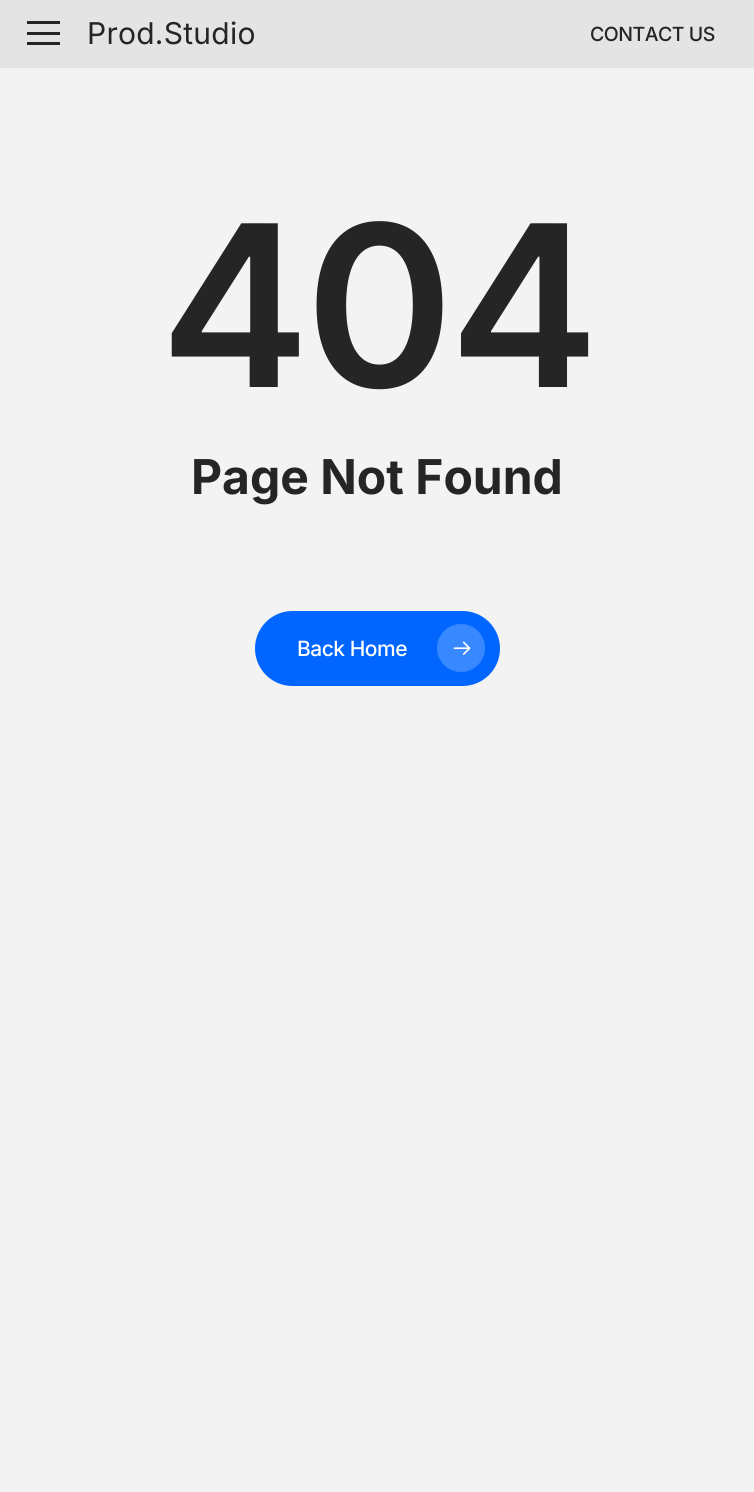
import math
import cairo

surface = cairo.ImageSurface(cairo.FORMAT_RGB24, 754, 1492)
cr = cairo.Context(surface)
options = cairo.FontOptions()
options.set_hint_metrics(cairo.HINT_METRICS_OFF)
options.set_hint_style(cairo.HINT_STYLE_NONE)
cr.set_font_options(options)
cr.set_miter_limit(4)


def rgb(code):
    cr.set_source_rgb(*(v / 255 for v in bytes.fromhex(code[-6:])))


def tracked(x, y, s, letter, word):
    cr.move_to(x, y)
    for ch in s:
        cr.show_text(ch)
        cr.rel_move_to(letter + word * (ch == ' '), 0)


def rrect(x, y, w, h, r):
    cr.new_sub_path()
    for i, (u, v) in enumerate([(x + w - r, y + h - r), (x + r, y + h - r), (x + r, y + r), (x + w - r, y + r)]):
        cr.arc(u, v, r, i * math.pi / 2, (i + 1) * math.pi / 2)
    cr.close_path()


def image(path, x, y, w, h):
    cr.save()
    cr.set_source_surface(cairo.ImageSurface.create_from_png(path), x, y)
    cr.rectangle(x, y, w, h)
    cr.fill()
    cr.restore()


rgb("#f3f3f3")
cr.paint()
for x, y, w, h, color in [
    (0, 0, 754, 68, "#e4e4e4"),
    (27, 21, 33, 3, "#252525"),
    (27, 42, 33, 3, "#252525"),
    (27, 32, 33, 3, "#252525"),
]:
    rgb(color)
    cr.rectangle(x, y, w, h)
    cr.fill()
rgb("#0066ff")
rrect(255, 611, 245, 75, 37.5)
cr.fill()
rgb("#3888ff")
cr.arc(461, 648, 24, 0, 2 * math.pi)
cr.fill()
image("img/1.png", 453, 641, 18, 14)
cr.select_font_face("Inter")
cr.set_font_size(30)
rgb("#252525")
tracked(87, 44, "Prod.Studio", 0.25, 0)
cr.select_font_face("Inter Medium")
cr.set_font_size(19.5)
tracked(590, 41, "CONTACT US", -0.5, 0)
cr.select_font_face("Inter SemiBold")
cr.set_font_size(225)
tracked(160, 387, "404", -4.5, 0)
cr.select_font_face("Inter", cairo.FONT_SLANT_NORMAL, cairo.FONT_WEIGHT_BOLD)
cr.set_font_size(48)
cr.move_to(191, 494)
cr.show_text("Page Not Found")
cr.select_font_face("Inter Medium")
cr.set_font_size(21)
rgb("#ffffff")
tracked(297, 656, "Back Home", -0.5, 0)
surface.write_to_png("page.png")
